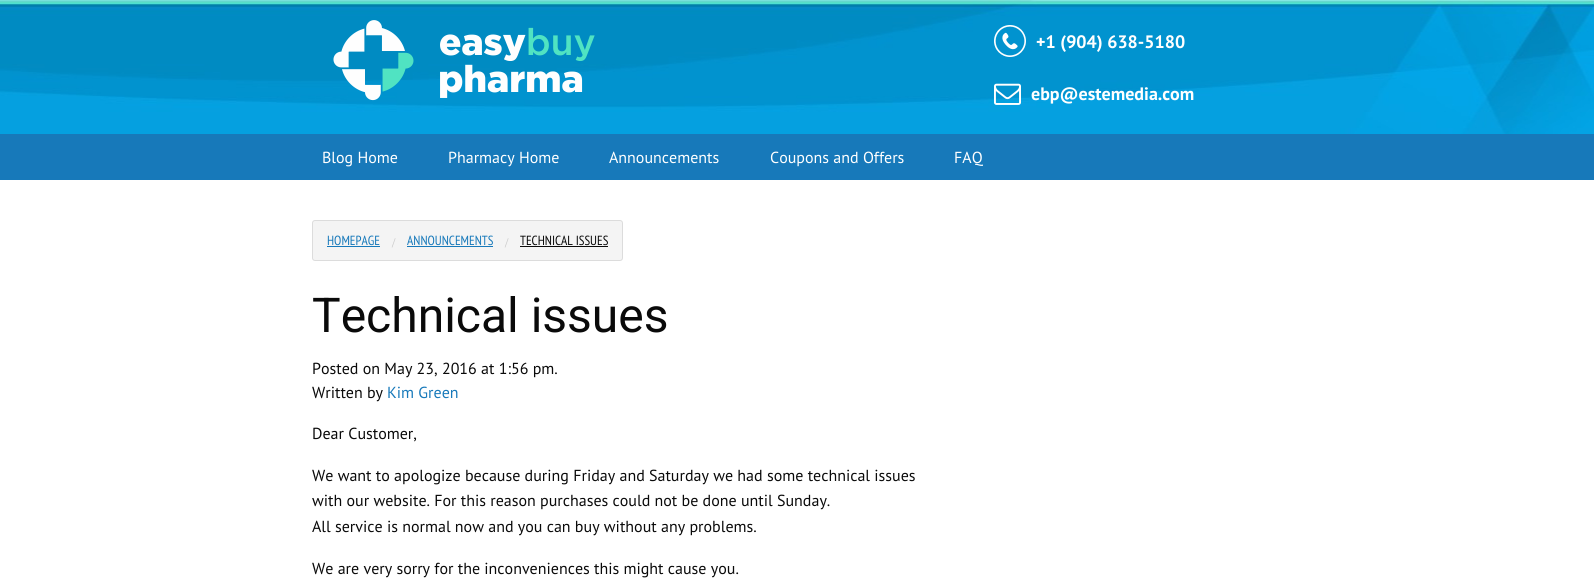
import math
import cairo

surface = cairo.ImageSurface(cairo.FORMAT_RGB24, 1594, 588)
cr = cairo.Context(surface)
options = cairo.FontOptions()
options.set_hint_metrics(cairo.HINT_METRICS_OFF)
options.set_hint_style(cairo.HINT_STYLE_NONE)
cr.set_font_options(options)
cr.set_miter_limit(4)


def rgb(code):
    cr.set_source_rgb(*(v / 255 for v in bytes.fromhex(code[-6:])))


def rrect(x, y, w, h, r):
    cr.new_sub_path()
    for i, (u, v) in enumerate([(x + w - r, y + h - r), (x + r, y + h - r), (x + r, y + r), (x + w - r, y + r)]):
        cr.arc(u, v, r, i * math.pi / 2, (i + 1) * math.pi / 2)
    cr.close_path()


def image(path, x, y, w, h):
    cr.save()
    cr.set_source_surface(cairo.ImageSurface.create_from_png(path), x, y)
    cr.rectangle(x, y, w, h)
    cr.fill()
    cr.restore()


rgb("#ffffff")
cr.paint()
image("img/1.png", 0, 0, 1594, 134)
image("img/2.png", 333, 20, 262, 81)
image("img/3.png", 994, 25, 32, 32)
image("img/4.png", 994, 83, 27, 22)
rgb("#1779ba")
cr.rectangle(0, 134, 1594, 46)
cr.fill()
rgb("#f4f4f4")
rrect(312.5, 220.5, 310, 40, 2.5)
cr.fill_preserve()
rgb("#dcdcdc")
cr.set_line_width(1)
cr.stroke()
for x, y, w, h, color in [
    (327, 246, 53, 1, "#1779ba"),
    (407, 246, 86, 1, "#1779ba"),
    (520, 246, 88, 1, "#0a0a0a"),
]:
    rgb(color)
    cr.rectangle(x, y, w, h)
    cr.fill()
cr.select_font_face("PT Sans", cairo.FONT_SLANT_NORMAL, cairo.FONT_WEIGHT_BOLD)
cr.set_font_size(18)
rgb("#ffffff")
cr.move_to(1036, 48)
cr.show_text("+1 (904) 638-5180")
cr.move_to(1031, 100)
cr.show_text("ebp@estemedia.com")
cr.select_font_face("PT Sans")
cr.set_font_size(16)
for x, y, s in [
    (322, 163, "Blog Home"),
    (448, 163, "Pharmacy Home"),
    (609, 163, "Announcements"),
    (770, 163, "Coupons and Offers"),
    (954, 163, "FAQ"),
]:
    cr.move_to(x, y)
    cr.show_text(s)
cr.select_font_face("PT Sans Narrow")
cr.set_font_size(13.25)
rgb("#1779ba")
cr.move_to(327, 245)
cr.show_text("HOMEPAGE")
cr.set_font_size(11)
rgb("#cacaca")
cr.move_to(392, 246)
cr.show_text("/")
cr.set_font_size(13.25)
rgb("#1779ba")
cr.move_to(407, 245)
cr.show_text("ANNOUNCEMENTS")
cr.set_font_size(11)
rgb("#cacaca")
cr.move_to(505, 246)
cr.show_text("/")
cr.set_font_size(13.25)
rgb("#0a0a0a")
cr.move_to(520, 245)
cr.show_text("TECHNICAL ISSUES")
cr.select_font_face("Roboto")
cr.set_font_size(48)
cr.move_to(312, 332)
cr.show_text("Technical issues")
cr.select_font_face("PT Sans")
cr.set_font_size(16)
cr.move_to(312, 374)
cr.show_text("Posted on May 23, 2016 at 1:56 pm.")
cr.move_to(312, 398)
cr.show_text("Written by")
rgb("#1779ba")
cr.move_to(387, 398)
cr.show_text("Kim Green")
rgb("#0a0a0a")
for x, y, s in [
    (312, 439, "Dear Customer,"),
    (312, 481, "We want to apologize because during Friday and Saturday we had some technical issues"),
    (312, 506, "with our website. For this reason purchases could not be done until Sunday."),
    (312, 532, "All service is normal now and you can buy without any problems."),
    (312, 574, "We are very sorry for the inconveniences this might cause you."),
]:
    cr.move_to(x, y)
    cr.show_text(s)
surface.write_to_png("page.png")
